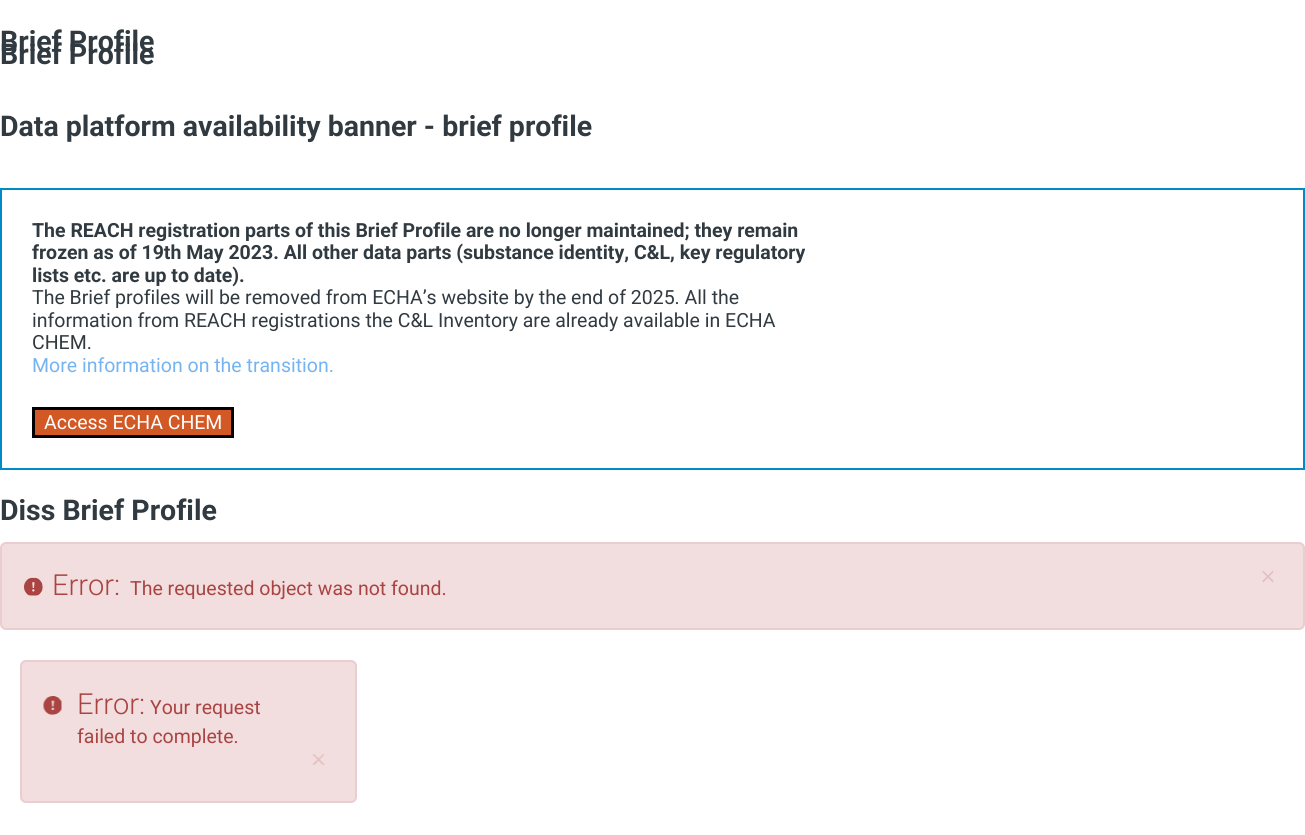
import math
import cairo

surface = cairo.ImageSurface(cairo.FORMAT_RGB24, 1305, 835)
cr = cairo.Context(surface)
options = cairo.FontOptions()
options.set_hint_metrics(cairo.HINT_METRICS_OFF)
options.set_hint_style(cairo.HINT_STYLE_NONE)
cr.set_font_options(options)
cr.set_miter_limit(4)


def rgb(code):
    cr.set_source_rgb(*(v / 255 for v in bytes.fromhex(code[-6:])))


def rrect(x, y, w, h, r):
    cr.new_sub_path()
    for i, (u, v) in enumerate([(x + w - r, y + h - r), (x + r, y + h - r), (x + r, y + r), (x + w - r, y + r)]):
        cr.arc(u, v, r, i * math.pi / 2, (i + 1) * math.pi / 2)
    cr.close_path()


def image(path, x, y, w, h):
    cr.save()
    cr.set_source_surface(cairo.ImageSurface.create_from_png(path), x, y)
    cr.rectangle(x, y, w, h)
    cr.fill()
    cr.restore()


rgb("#ffffff")
cr.paint()
cr.rectangle(1, 189, 1303, 280)
rgb("#008bc8")
cr.stroke()
rgb("#d25925")
cr.rectangle(33.5, 408.5, 199, 28)
cr.fill_preserve()
rgb("#000000")
cr.set_line_width(3)
cr.stroke()
rgb("#f2dede")
rrect(1, 543, 1303, 86, 5)
cr.fill_preserve()
rgb("#ebccd1")
cr.set_line_width(2)
cr.stroke()
image("img/1.png", 24, 577, 19, 19)
image("img/2.png", 1262, 571, 12, 12)
rgb("#f2dede")
rrect(21, 661, 335, 141, 5)
cr.fill_preserve()
rgb("#ebccd1")
cr.stroke()
image("img/3.png", 43, 696, 19, 19)
image("img/4.png", 312, 754, 13, 11)
cr.select_font_face("Roboto", cairo.FONT_SLANT_NORMAL, cairo.FONT_WEIGHT_BOLD)
cr.set_font_size(28.5)
rgb("#303a40")
for x, y, s in [
    (0, 51, "Brief Profile"),
    (0, 64, "Brief Profile"),
    (0, 136, "Data platform availability banner - brief profile"),
]:
    cr.move_to(x, y)
    cr.show_text(s)
cr.set_font_size(19.5)
for x, y, s in [
    (32, 237, "The REACH registration parts of this Brief Profile are no longer maintained; they remain"),
    (32, 259, "frozen as of 19th May 2023. All other data parts (substance identity, C&L, key regulatory"),
    (32, 282, "lists etc. are up to date)."),
]:
    cr.move_to(x, y)
    cr.show_text(s)
cr.select_font_face("Roboto")
for x, y, s in [
    (32, 304, "The Brief profiles will be removed from ECHA’s website by the end of 2025. All the"),
    (32, 327, "information from REACH registrations the C&L Inventory are already available in ECHA"),
    (32, 349, "CHEM."),
]:
    cr.move_to(x, y)
    cr.show_text(s)
rgb("#76b4f1")
cr.move_to(32, 372)
cr.show_text("More information on the transition.")
rgb("#ffffff")
cr.move_to(44, 429)
cr.show_text("Access ECHA CHEM")
cr.select_font_face("Roboto", cairo.FONT_SLANT_NORMAL, cairo.FONT_WEIGHT_BOLD)
cr.set_font_size(28.5)
rgb("#303a40")
cr.move_to(0, 520)
cr.show_text("Diss Brief Profile")
cr.select_font_face("Roboto Light")
cr.set_font_size(29)
rgb("#a94442")
cr.move_to(52, 595)
cr.show_text("Error:")
cr.select_font_face("Roboto")
cr.set_font_size(19.5)
cr.move_to(130, 595)
cr.show_text("The requested object was not found.")
cr.select_font_face("Roboto Light")
cr.set_font_size(29)
cr.move_to(77, 714)
cr.show_text("Error:")
cr.select_font_face("Roboto")
cr.set_font_size(19.5)
cr.move_to(150, 714)
cr.show_text("Your request")
cr.move_to(77, 743)
cr.show_text("failed to complete.")
surface.write_to_png("page.png")
